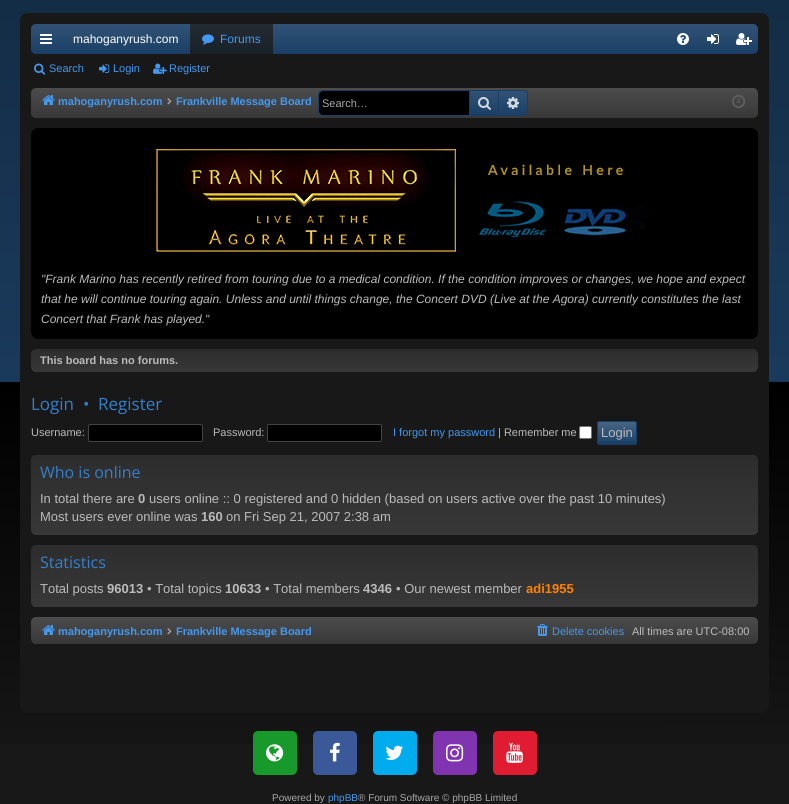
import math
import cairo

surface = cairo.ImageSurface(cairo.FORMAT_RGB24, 789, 804)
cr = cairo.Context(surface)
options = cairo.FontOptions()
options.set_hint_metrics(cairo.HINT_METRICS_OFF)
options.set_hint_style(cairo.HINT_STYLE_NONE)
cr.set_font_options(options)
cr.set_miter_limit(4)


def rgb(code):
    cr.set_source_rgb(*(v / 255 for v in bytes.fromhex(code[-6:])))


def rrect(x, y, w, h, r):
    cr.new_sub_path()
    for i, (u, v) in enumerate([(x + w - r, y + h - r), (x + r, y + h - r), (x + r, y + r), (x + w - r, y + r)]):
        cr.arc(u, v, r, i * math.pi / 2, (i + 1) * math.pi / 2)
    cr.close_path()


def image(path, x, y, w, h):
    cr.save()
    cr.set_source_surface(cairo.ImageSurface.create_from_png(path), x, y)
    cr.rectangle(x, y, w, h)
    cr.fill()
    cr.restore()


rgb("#181818")
cr.paint()
gradient = cairo.LinearGradient(394, -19, 395, 785)
gradient.add_color_stop_rgba(0, 0, 0, 0, 1)
gradient.add_color_stop_rgba(0.5, 0, 0, 0, 1)
gradient.add_color_stop_rgba(1, 0.094, 0.094, 0.094, 1)
cr.set_source(gradient)
cr.rectangle(0, 382, 789, 362)
cr.fill()
gradient = cairo.LinearGradient(395, -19, 395, 381)
gradient.add_color_stop_rgba(0, 0.078, 0.173, 0.271, 1)
gradient.add_color_stop_rgba(1, 0.102, 0.227, 0.361, 1)
cr.set_source(gradient)
cr.rectangle(0, 0, 789, 381)
cr.fill()
rgb("#13375d")
cr.rectangle(0, 381, 789, 1)
cr.fill()
rgb("#181818")
rrect(20.5, 13.5, 748, 699, 7.5)
cr.fill_preserve()
cr.set_line_width(1)
cr.stroke()
rgb("#1a3f66")
rrect(31, 24, 727, 30, 5)
cr.fill()
gradient = cairo.LinearGradient(395, 24, 395, 54)
gradient.add_color_stop_rgba(0, 1, 1, 1, 0.1)
gradient.add_color_stop_rgba(1, 1, 1, 1, 0)
cr.set_source(gradient)
rrect(31, 24, 727, 30, 5)
cr.fill()
image("img/1.png", 40, 34, 12, 10)
gradient = cairo.LinearGradient(232, 24, 232, 54)
gradient.add_color_stop_rgba(0, 0.141, 0.169, 0.2, 1)
gradient.add_color_stop_rgba(1, 0.094, 0.125, 0.157, 1)
cr.set_source(gradient)
cr.rectangle(190, 24, 83, 30)
cr.fill()
image("img/2.png", 202, 34, 12, 11)
image("img/3.png", 677, 33, 12, 12)
image("img/4.png", 707, 34, 12, 10)
image("img/5.png", 736, 33, 16, 12)
image("img/6.png", 34, 63, 12, 12)
image("img/7.png", 99, 64, 11, 9)
image("img/8.png", 153, 63, 14, 11)
rgb("#383838")
rrect(31, 88, 727, 30, 5)
cr.fill()
gradient = cairo.LinearGradient(395, 88, 395, 118)
gradient.add_color_stop_rgba(0, 1, 1, 1, 0.1)
gradient.add_color_stop_rgba(1, 1, 1, 1, 0)
cr.set_source(gradient)
rrect(31, 88, 727, 30, 5)
cr.fill()
image("img/9.png", 42, 95, 13, 10)
image("img/10.png", 167, 98, 5, 7)
rrect(318.5, 90.5, 209, 25, 3.5)
rgb("#1a3f66")
cr.stroke()
rgb("#000000")
cr.new_path()
cr.move_to(323, 91)
cr.line_to(469, 91)
cr.line_to(469, 115)
cr.line_to(323, 115)
cr.curve_to(321, 115, 319, 113, 319, 111)
cr.line_to(319, 95)
cr.curve_to(319, 93, 321, 91, 323, 91)
cr.close_path()
cr.fill()
gradient = cairo.LinearGradient(484, 91, 484, 115)
gradient.add_color_stop_rgba(0, 0.192, 0.322, 0.459, 1)
gradient.add_color_stop_rgba(1, 0.102, 0.247, 0.4, 1)
cr.set_source(gradient)
cr.rectangle(470, 91, 28, 24)
cr.fill()
rgb("#1a3f66")
cr.rectangle(498, 91, 1, 24)
cr.fill()
cr.rectangle(469, 91, 1, 24)
cr.fill()
image("img/11.png", 478, 97, 13, 13)
cr.new_path()
cr.move_to(499, 91)
cr.line_to(523, 91)
cr.curve_to(525, 91, 527, 93, 527, 95)
cr.line_to(527, 111)
cr.curve_to(527, 113, 525, 115, 523, 115)
cr.line_to(499, 115)
cr.close_path()
cr.fill()
gradient = cairo.LinearGradient(513, 91, 513, 115)
gradient.add_color_stop_rgba(0, 1, 1, 1, 0.1)
gradient.add_color_stop_rgba(1, 1, 1, 1, 0)
cr.set_source(gradient)
cr.new_path()
cr.move_to(499, 91)
cr.line_to(523, 91)
cr.curve_to(525, 91, 527, 93, 527, 95)
cr.line_to(527, 111)
cr.curve_to(527, 113, 525, 115, 523, 115)
cr.line_to(499, 115)
cr.close_path()
cr.fill()
image("img/12.png", 507, 97, 12, 12)
image("img/13.png", 732, 95, 14, 13)
rgb("#000000")
rrect(31, 128, 727, 211, 7)
cr.fill()
image("img/14.png", 156, 149, 489, 103)
rgb("#383838")
rrect(31, 349, 727, 23, 5)
cr.fill()
gradient = cairo.LinearGradient(395, 349, 395, 372)
gradient.add_color_stop_rgba(0, 0, 0, 0, 0.2)
gradient.add_color_stop_rgba(1, 0, 0, 0, 0)
cr.set_source(gradient)
rrect(31, 349, 727, 23, 5)
cr.fill()
rgb("#000000")
rrect(88.5, 424.5, 114, 17, 1.5)
cr.fill_preserve()
rgb("#444444")
cr.stroke()
rgb("#000000")
rrect(267.5, 424.5, 114, 17, 1.5)
cr.fill_preserve()
rgb("#444444")
cr.stroke()
rgb("#ffffff")
rrect(579.5, 426.5, 12, 12, 1.5)
cr.fill_preserve()
rgb("#767676")
cr.stroke()
rgb("#1a3f66")
rrect(597, 421, 40, 24, 3)
cr.fill()
gradient = cairo.LinearGradient(617, 422, 617, 444)
gradient.add_color_stop_rgba(0, 1, 1, 1, 0.2)
gradient.add_color_stop_rgba(1, 1, 1, 1, 0)
cr.set_source(gradient)
cr.rectangle(597, 422, 40, 20)
cr.fill()
rrect(597.5, 421.5, 39, 23, 2.5)
rgb("#1a3f66")
cr.stroke()
rgb("#383838")
rrect(31, 455, 727, 80, 5)
cr.fill()
gradient = cairo.LinearGradient(395, 455, 395, 535)
gradient.add_color_stop_rgba(0, 0, 0, 0, 0.2)
gradient.add_color_stop_rgba(1, 0, 0, 0, 0)
cr.set_source(gradient)
rrect(31, 455, 727, 80, 5)
cr.fill()
rgb("#383838")
rrect(31, 545, 727, 62, 5)
cr.fill()
gradient = cairo.LinearGradient(395, 545, 395, 607)
gradient.add_color_stop_rgba(0, 0, 0, 0, 0.2)
gradient.add_color_stop_rgba(1, 0, 0, 0, 0)
cr.set_source(gradient)
rrect(31, 545, 727, 62, 5)
cr.fill()
rgb("#383838")
rrect(31, 617, 727, 27, 5)
cr.fill()
gradient = cairo.LinearGradient(395, 617, 395, 644)
gradient.add_color_stop_rgba(0, 1, 1, 1, 0.1)
gradient.add_color_stop_rgba(1, 1, 1, 1, 0)
cr.set_source(gradient)
rrect(31, 617, 727, 27, 5)
cr.fill()
image("img/15.png", 42, 625, 13, 10)
image("img/16.png", 167, 628, 5, 7)
image("img/17.png", 537, 624, 11, 12)
rgb("#18992c")
rrect(253, 731, 44, 44, 5)
cr.fill()
image("img/18.png", 266, 744, 18, 18)
rgb("#3b5998")
rrect(313, 731, 44, 44, 5)
cr.fill()
image("img/19.png", 330, 742, 10, 20)
rgb("#00aced")
rrect(373, 731, 44, 44, 5)
cr.fill()
image("img/20.png", 385, 745, 18, 15)
rgb("#8134af")
rrect(433, 731, 44, 44, 5)
cr.fill()
image("img/21.png", 446, 744, 18, 18)
rgb("#df1c31")
rrect(493, 731, 44, 44, 5)
cr.fill()
image("img/22.png", 506, 742, 17, 21)
cr.select_font_face("Liberation Sans")
cr.set_font_size(12)
rgb("#ffffff")
cr.move_to(73, 43)
cr.show_text("mahoganyrush.com")
rgb("#4398ef")
cr.move_to(220, 43)
cr.show_text("Forums")
cr.set_font_size(11)
for x, y, s in [
    (49, 72, "Search"),
    (113, 72, "Login"),
    (169, 72, "Register"),
]:
    cr.move_to(x, y)
    cr.show_text(s)
cr.select_font_face("Liberation Sans", cairo.FONT_SLANT_NORMAL, cairo.FONT_WEIGHT_BOLD)
cr.move_to(58, 105)
cr.show_text("mahoganyrush.com")
cr.move_to(176, 105)
cr.show_text("Frankville Message Board")
cr.select_font_face("Liberation Sans")
rgb("#a8a8a8")
cr.move_to(322, 107)
cr.show_text("Search…")
cr.select_font_face("Liberation Sans", cairo.FONT_SLANT_ITALIC)
cr.set_font_size(12)
rgb("#bbbbbb")
for x, y, s in [
    (41, 283, "\"Frank Marino has recently retired from touring due to a medical condition. If the condition improves or changes, we hope and expect"),
    (41, 303, "that he will continue touring again. Unless and until things change, the Concert DVD (Live at the Agora) currently constitutes the last"),
    (41, 323, "Concert that Frank has played.\""),
]:
    cr.move_to(x, y)
    cr.show_text(s)
cr.select_font_face("Liberation Sans", cairo.FONT_SLANT_NORMAL, cairo.FONT_WEIGHT_BOLD)
cr.set_font_size(11)
cr.move_to(40, 364)
cr.show_text("This board has no forums.")
cr.select_font_face("Open Sans")
cr.set_font_size(17)
rgb("#347fcb")
for x, y, s in [
    (31, 410, "Login"),
    (83, 410, "•"),
    (98, 410, "Register"),
]:
    cr.move_to(x, y)
    cr.show_text(s)
cr.select_font_face("Liberation Sans")
cr.set_font_size(11)
rgb("#bbbbbb")
cr.move_to(31, 436)
cr.show_text("Username:")
cr.move_to(213, 436)
cr.show_text("Password:")
rgb("#4398ef")
cr.move_to(393, 436)
cr.show_text("I forgot my password")
rgb("#bbbbbb")
cr.move_to(498, 436)
cr.show_text("| Remember me")
cr.set_font_size(13)
cr.move_to(601, 437)
cr.show_text("Login")
cr.select_font_face("Open Sans")
cr.set_font_size(16)
rgb("#347fcb")
cr.move_to(40, 478)
cr.show_text("Who is online")
cr.select_font_face("Liberation Sans")
cr.set_font_size(13)
rgb("#bbbbbb")
cr.move_to(40, 503)
cr.show_text("In total there are")
cr.select_font_face("Liberation Sans", cairo.FONT_SLANT_NORMAL, cairo.FONT_WEIGHT_BOLD)
cr.move_to(138, 503)
cr.show_text("0")
cr.select_font_face("Liberation Sans")
cr.move_to(149, 503)
cr.show_text("users online :: 0 registered and 0 hidden (based on users active over the past 10 minutes)")
cr.move_to(40, 521)
cr.show_text("Most users ever online was")
cr.select_font_face("Liberation Sans", cairo.FONT_SLANT_NORMAL, cairo.FONT_WEIGHT_BOLD)
cr.move_to(201, 521)
cr.show_text("160")
cr.select_font_face("Liberation Sans")
cr.move_to(226, 521)
cr.show_text("on Fri Sep 21, 2007 2:38 am")
cr.select_font_face("Open Sans")
cr.set_font_size(16)
rgb("#347fcb")
cr.move_to(40, 568)
cr.show_text("Statistics")
cr.select_font_face("Liberation Sans")
cr.set_font_size(13)
rgb("#bbbbbb")
cr.move_to(40, 593)
cr.show_text("Total posts")
cr.select_font_face("Liberation Sans", cairo.FONT_SLANT_NORMAL, cairo.FONT_WEIGHT_BOLD)
cr.move_to(107, 593)
cr.show_text("96013")
cr.select_font_face("Liberation Sans")
cr.move_to(147, 593)
cr.show_text("• Total topics")
cr.select_font_face("Liberation Sans", cairo.FONT_SLANT_NORMAL, cairo.FONT_WEIGHT_BOLD)
cr.move_to(225, 593)
cr.show_text("10633")
cr.select_font_face("Liberation Sans")
cr.move_to(265, 593)
cr.show_text("• Total members")
cr.select_font_face("Liberation Sans", cairo.FONT_SLANT_NORMAL, cairo.FONT_WEIGHT_BOLD)
cr.move_to(363, 593)
cr.show_text("4346")
cr.select_font_face("Liberation Sans")
cr.move_to(396, 593)
cr.show_text("• Our newest member")
cr.select_font_face("Liberation Sans", cairo.FONT_SLANT_NORMAL, cairo.FONT_WEIGHT_BOLD)
rgb("#ff8000")
cr.move_to(526, 593)
cr.show_text("adi1955")
cr.set_font_size(11)
rgb("#4398ef")
cr.move_to(58, 635)
cr.show_text("mahoganyrush.com")
cr.move_to(176, 635)
cr.show_text("Frankville Message Board")
cr.select_font_face("Liberation Sans")
cr.move_to(552, 635)
cr.show_text("Delete cookies")
rgb("#bbbbbb")
cr.move_to(632, 635)
cr.show_text("All times are UTC-08:00")
cr.set_font_size(10)
rgb("#a8a8a8")
cr.move_to(272, 801)
cr.show_text("Powered by")
rgb("#4398ef")
cr.move_to(328, 801)
cr.show_text("phpBB")
rgb("#a8a8a8")
cr.move_to(358, 801)
cr.show_text("® Forum Software © phpBB Limited")
surface.write_to_png("page.png")
